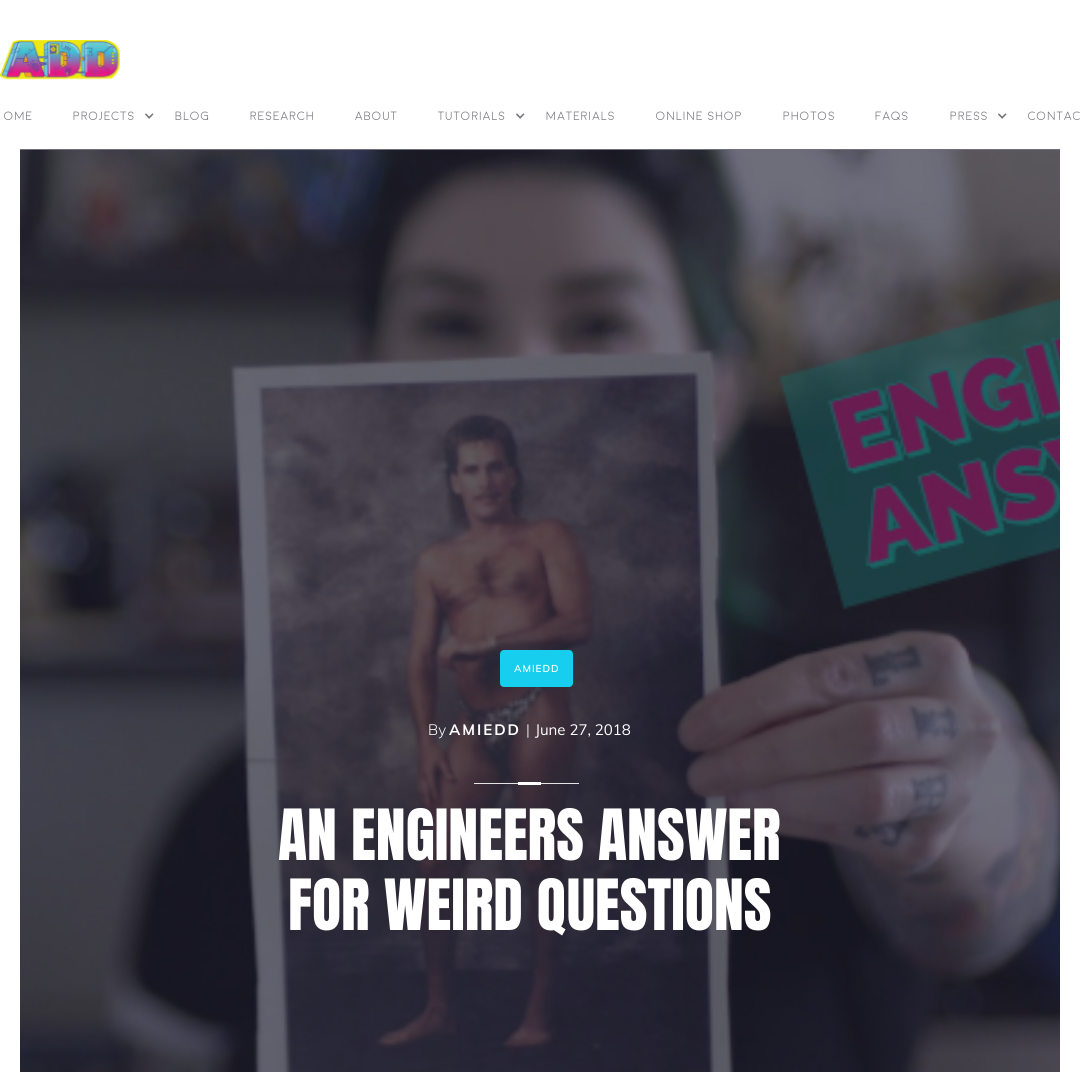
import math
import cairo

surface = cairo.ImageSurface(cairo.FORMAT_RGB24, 1080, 1072)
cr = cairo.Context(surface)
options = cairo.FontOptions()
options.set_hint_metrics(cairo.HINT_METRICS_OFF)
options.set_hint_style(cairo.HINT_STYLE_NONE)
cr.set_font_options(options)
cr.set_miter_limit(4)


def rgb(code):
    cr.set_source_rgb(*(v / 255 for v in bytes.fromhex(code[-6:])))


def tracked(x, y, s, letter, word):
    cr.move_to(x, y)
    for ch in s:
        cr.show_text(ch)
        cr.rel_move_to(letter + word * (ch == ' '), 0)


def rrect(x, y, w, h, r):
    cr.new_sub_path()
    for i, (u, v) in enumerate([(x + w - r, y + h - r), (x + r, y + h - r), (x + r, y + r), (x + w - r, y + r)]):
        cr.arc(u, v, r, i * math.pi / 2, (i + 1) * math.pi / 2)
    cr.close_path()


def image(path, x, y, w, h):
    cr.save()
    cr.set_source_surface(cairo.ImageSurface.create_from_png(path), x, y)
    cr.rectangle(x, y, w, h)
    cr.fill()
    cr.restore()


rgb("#ffffff")
cr.paint()
rgb("#706f7b")
cr.rectangle(20, 149, 1040, 1)
cr.fill()
image("img/1.png", 0, 40, 120, 40)
image("img/2.png", 145, 113, 9, 6)
image("img/2.png", 516, 113, 9, 6)
image("img/2.png", 998, 113, 9, 6)
image("img/3.png", 20, 150, 1040, 922)
rgb("#18ceef")
rrect(500, 650, 73, 37, 4)
cr.fill()
rgb("#e4e4e4")
cr.rectangle(474, 783, 105, 1)
cr.fill()
rgb("#ffffff")
cr.rectangle(518, 782, 23, 3)
cr.fill()
cr.select_font_face("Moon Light")
cr.set_font_size(12)
rgb("#75757c")
for x, y, s in [
    (4, 120, "OME"),
    (73, 120, "PROJECTS"),
    (175, 120, "BLOG"),
    (250, 120, "RESEARCH"),
    (355, 120, "ABOUT"),
    (438, 120, "TUTORIALS"),
    (546, 120, "MATERIALS"),
    (656, 120, "ONLINE SHOP"),
    (783, 120, "PHOTOS"),
    (875, 120, "FAQS"),
    (950, 120, "PRESS"),
    (1028, 120, "CONTAC"),
]:
    tracked(x, y, s, 1, 0)
cr.select_font_face("Muli SemiBold")
cr.set_font_size(10)
rgb("#ffffff")
tracked(514, 672, "AMIEDD", 1, 0)
cr.select_font_face("Muli Light")
cr.set_font_size(15)
cr.move_to(428, 735)
cr.show_text("By")
cr.select_font_face("Muli", cairo.FONT_SLANT_NORMAL, cairo.FONT_WEIGHT_BOLD)
tracked(449, 735, "AMIEDD", 2, 0)
cr.select_font_face("Muli Light")
cr.move_to(526, 735)
cr.show_text("|")
cr.select_font_face("Muli")
cr.move_to(535, 735)
cr.show_text("June 27, 2018")
cr.select_font_face("Anton")
cr.set_font_size(60)
cr.move_to(278, 860)
cr.show_text("AN ENGINEERS ANSWER")
cr.move_to(288, 930)
cr.show_text("FOR WEIRD QUESTIONS")
surface.write_to_png("page.png")
